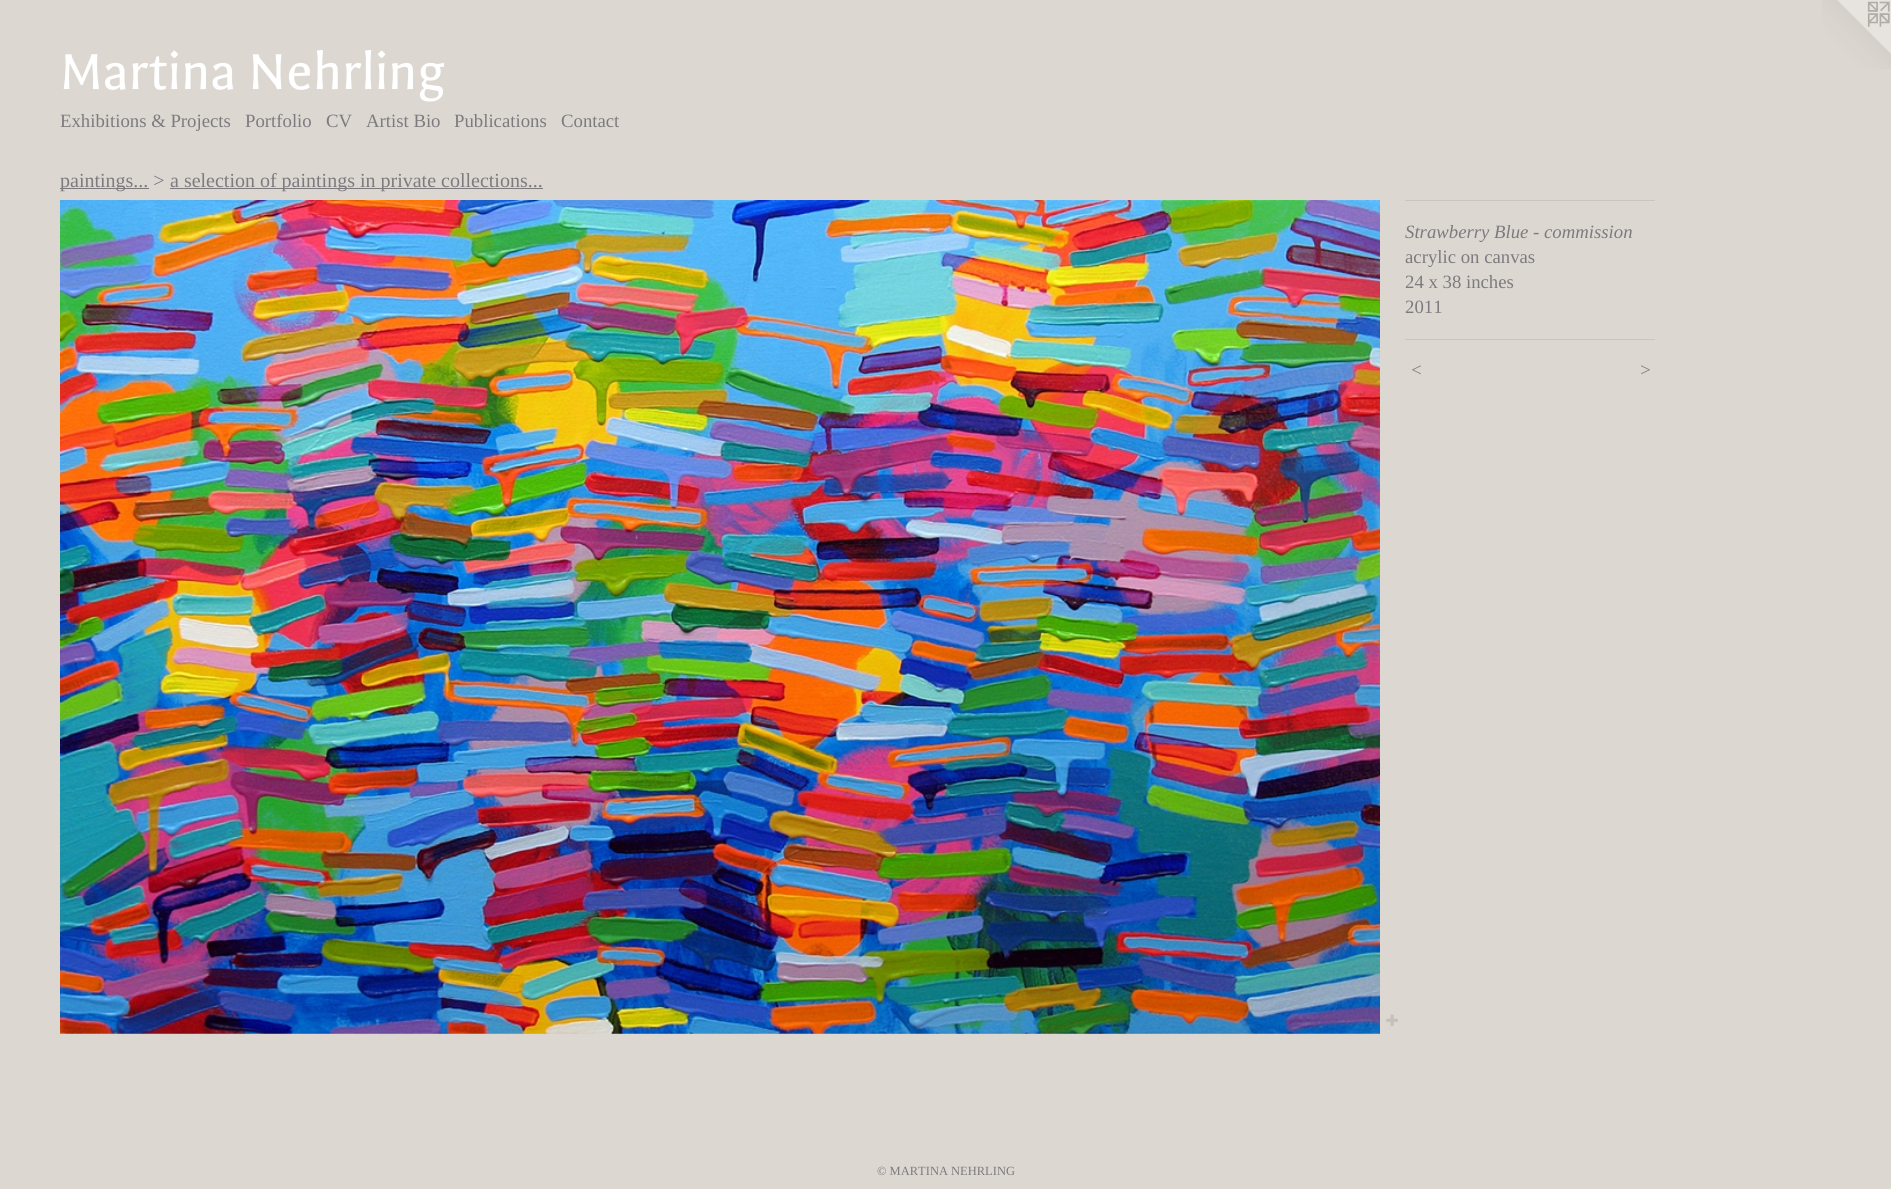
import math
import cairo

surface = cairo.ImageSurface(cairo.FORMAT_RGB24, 1891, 1189)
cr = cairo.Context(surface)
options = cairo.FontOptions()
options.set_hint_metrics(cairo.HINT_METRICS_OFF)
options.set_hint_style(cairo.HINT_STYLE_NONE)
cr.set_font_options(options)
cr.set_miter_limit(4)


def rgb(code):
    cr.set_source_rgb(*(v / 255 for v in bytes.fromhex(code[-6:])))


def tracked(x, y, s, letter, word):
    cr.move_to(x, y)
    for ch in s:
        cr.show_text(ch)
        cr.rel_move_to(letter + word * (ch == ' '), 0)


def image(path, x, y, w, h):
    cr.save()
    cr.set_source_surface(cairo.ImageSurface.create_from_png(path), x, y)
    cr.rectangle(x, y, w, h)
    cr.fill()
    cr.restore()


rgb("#dcd8d1")
cr.paint()
image("img/1.png", 1822, 0, 69, 69)
rgb("#7d7a7f")
cr.rectangle(60, 188, 89, 1)
cr.fill()
cr.rectangle(170, 188, 373, 1)
cr.fill()
image("img/2.png", 60, 200, 1320, 834)
image("img/3.png", 1386, 1014, 12, 13)
rgb("#c9c5c1")
cr.rectangle(1405, 200, 250, 1)
cr.fill()
cr.rectangle(1405, 339, 250, 1)
cr.fill()
cr.select_font_face("Galdeano")
cr.set_font_size(57.5)
rgb("#ffffff")
cr.move_to(60, 89)
cr.show_text("Martina Nehrling")
cr.select_font_face("Liberation Serif")
cr.set_font_size(18.75)
rgb("#7d7a7f")
for x, y, s in [
    (60, 127, "Exhibitions & Projects"),
    (245, 127, "Portfolio"),
    (326, 127, "CV"),
    (366, 127, "Artist Bio"),
    (454, 127, "Publications"),
    (561, 127, "Contact"),
]:
    cr.move_to(x, y)
    cr.show_text(s)
cr.set_font_size(20)
cr.move_to(60, 187)
cr.show_text("paintings... >")
cr.move_to(170, 187)
cr.show_text("a selection of paintings in private collections...")
cr.select_font_face("Liberation Serif", cairo.FONT_SLANT_ITALIC)
cr.set_font_size(18.75)
cr.move_to(1405, 238)
cr.show_text("Strawberry Blue - commission")
cr.select_font_face("Liberation Serif")
for x, y, s in [
    (1405, 263, "acrylic on canvas"),
    (1405, 288, "24 x 38 inches"),
    (1405, 313, "2011"),
]:
    cr.move_to(x, y)
    cr.show_text(s)
cr.select_font_face("Liberation Serif", cairo.FONT_SLANT_ITALIC)
tracked(1410, 376, "<", 1, 0)
tracked(1639, 376, ">", 1, 0)
cr.select_font_face("Liberation Serif")
cr.set_font_size(12.5)
cr.move_to(877, 1175)
cr.show_text("© MARTINA NEHRLING")
surface.write_to_png("page.png")
